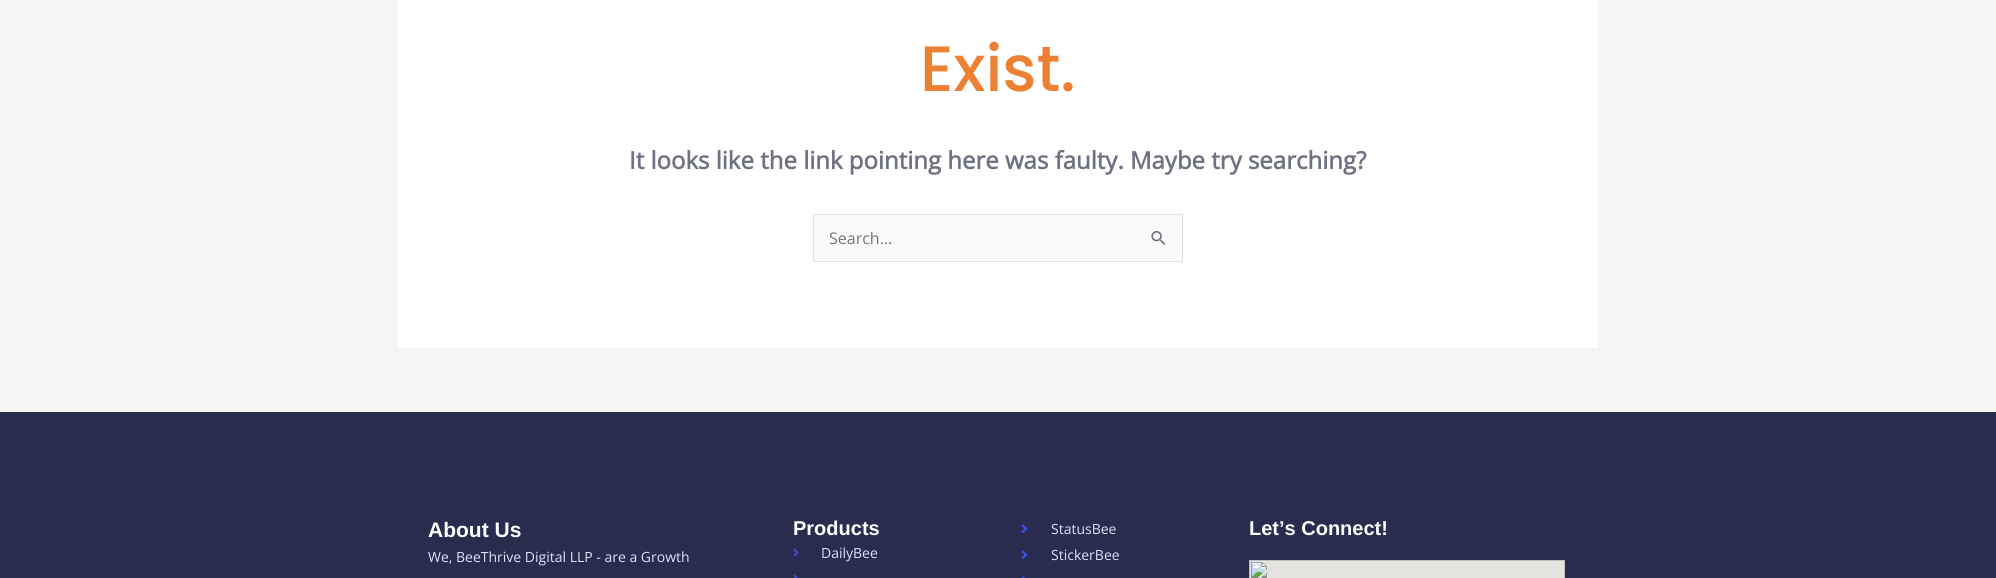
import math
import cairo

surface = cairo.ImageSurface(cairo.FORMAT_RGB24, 1996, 578)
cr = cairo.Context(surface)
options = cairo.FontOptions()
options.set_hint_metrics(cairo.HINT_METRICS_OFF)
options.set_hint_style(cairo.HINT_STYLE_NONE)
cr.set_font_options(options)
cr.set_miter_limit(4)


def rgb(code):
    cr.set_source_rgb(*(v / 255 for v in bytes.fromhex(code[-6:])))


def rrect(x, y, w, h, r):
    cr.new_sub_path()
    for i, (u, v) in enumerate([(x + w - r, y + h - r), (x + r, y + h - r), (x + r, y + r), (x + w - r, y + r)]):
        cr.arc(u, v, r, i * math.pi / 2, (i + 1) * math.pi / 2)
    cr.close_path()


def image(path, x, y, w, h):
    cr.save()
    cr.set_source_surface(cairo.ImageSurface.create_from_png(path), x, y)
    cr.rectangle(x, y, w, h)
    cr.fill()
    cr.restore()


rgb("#f5f5f5")
cr.paint()
rgb("#ffffff")
cr.rectangle(398, 0, 1200, 348)
cr.fill()
rgb("#fafafa")
rrect(813.5, 214.5, 369, 47, 1.5)
cr.fill_preserve()
rgb("#dddddd")
cr.set_line_width(1)
cr.stroke()
image("img/1.png", 1151, 231, 15, 14)
rgb("#282c4e")
cr.rectangle(0, 412, 1996, 166)
cr.fill()
image("img/2.png", 793, 548, 6, 9)
image("img/3.png", 793, 574, 5, 4)
image("img/4.png", 1021, 524, 7, 10)
image("img/4.png", 1021, 550, 7, 10)
image("img/5.png", 1021, 576, 4, 2)
image("img/6.png", 1249, 560, 316, 18)
cr.select_font_face("Poppins Medium")
cr.set_font_size(64)
rgb("#ec8133")
cr.move_to(920, 91)
cr.show_text("Exist.")
cr.select_font_face("Open Sans", cairo.FONT_SLANT_NORMAL, cairo.FONT_WEIGHT_BOLD)
cr.set_font_size(24)
rgb("#6e7180")
cr.move_to(629, 169)
cr.show_text("It looks like the link pointing here was faulty. Maybe try searching?")
cr.select_font_face("Open Sans")
cr.set_font_size(16)
rgb("#757575")
cr.move_to(829, 244)
cr.show_text("Search...")
cr.select_font_face("Liberation Sans", cairo.FONT_SLANT_NORMAL, cairo.FONT_WEIGHT_BOLD)
cr.set_font_size(21)
rgb("#ffffff")
cr.move_to(428, 537)
cr.show_text("About Us")
cr.select_font_face("Open Sans")
cr.set_font_size(14)
rgb("#dee1f8")
cr.move_to(428, 562)
cr.show_text("We, BeeThrive Digital LLP - are a Growth")
cr.select_font_face("Liberation Sans", cairo.FONT_SLANT_NORMAL, cairo.FONT_WEIGHT_BOLD)
cr.set_font_size(20)
rgb("#ffffff")
cr.move_to(793, 535)
cr.show_text("Products")
cr.select_font_face("Open Sans")
cr.set_font_size(14)
rgb("#dee1f8")
for x, y, s in [
    (821, 558, "DailyBee"),
    (1051, 534, "StatusBee"),
    (1051, 560, "StickerBee"),
]:
    cr.move_to(x, y)
    cr.show_text(s)
cr.select_font_face("Liberation Sans", cairo.FONT_SLANT_NORMAL, cairo.FONT_WEIGHT_BOLD)
cr.set_font_size(20)
rgb("#ffffff")
cr.move_to(1249, 535)
cr.show_text("Let’s Connect!")
surface.write_to_png("page.png")
